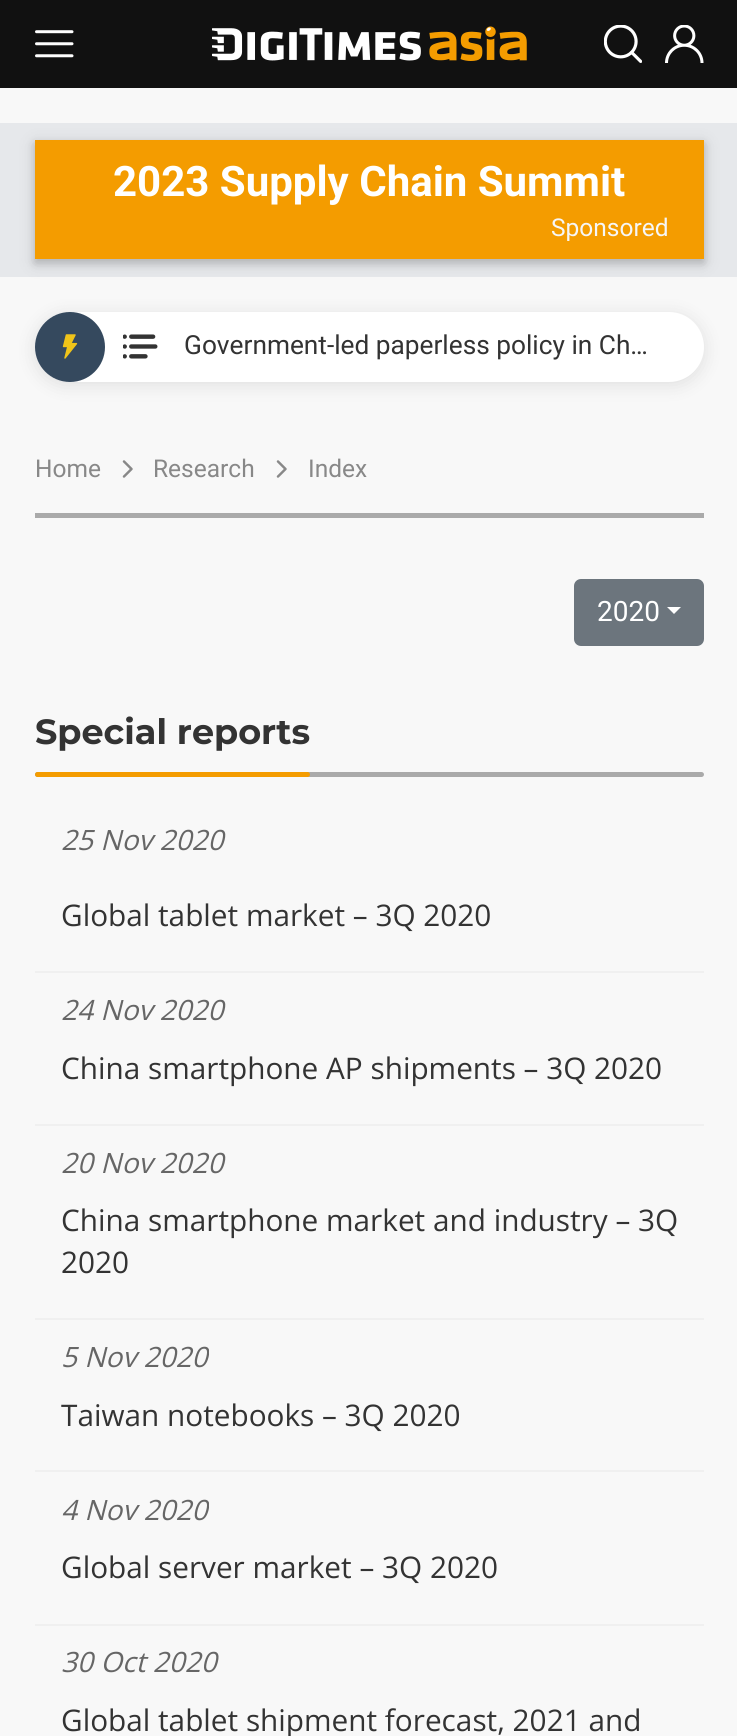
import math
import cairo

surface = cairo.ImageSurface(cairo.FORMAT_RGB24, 737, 1736)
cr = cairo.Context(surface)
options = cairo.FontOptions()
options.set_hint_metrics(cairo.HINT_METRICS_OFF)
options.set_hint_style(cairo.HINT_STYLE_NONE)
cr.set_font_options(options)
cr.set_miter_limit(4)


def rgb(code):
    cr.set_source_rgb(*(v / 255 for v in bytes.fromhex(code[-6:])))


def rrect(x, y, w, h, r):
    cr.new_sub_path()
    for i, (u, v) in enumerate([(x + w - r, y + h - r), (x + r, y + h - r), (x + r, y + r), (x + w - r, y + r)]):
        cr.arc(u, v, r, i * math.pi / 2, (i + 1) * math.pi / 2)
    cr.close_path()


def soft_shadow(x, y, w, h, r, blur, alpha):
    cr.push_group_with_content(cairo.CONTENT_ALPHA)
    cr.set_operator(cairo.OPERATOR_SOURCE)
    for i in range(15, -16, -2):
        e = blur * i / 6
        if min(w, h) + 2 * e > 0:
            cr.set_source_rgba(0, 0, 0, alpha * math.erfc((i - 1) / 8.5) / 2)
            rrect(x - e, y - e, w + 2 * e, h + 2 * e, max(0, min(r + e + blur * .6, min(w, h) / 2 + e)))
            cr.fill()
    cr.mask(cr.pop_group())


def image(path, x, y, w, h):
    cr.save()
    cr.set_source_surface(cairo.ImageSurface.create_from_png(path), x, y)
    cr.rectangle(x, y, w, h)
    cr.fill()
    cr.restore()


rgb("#f8f8f8")
cr.paint()
rgb("#111111")
cr.rectangle(0, 0, 737, 88)
cr.fill()
image("img/1.png", 35, 30, 39, 28)
image("img/2.png", 212, 26, 315, 35)
image("img/3.png", 604, 25, 38, 38)
image("img/4.png", 665, 25, 39, 38)
rgb("#e6e8eb")
cr.rectangle(0, 123, 737, 154)
cr.fill()
rgb("#000000")
soft_shadow(35, 144, 669, 119, 0, 9, 0.12)
soft_shadow(35, 144, 669, 119, 0, 4.5, 0.16)
rgb("#f49c00")
cr.rectangle(35, 140, 669, 119)
cr.fill()
rgb("#000000")
soft_shadow(35, 315, 669, 70, 35, 9, 0.1)
rgb("#ffffff")
rrect(35, 312, 669, 70, 35)
cr.fill()
rgb("#35495e")
cr.arc(70, 347, 35, 0, 2 * math.pi)
cr.fill()
image("img/5.png", 62, 334, 16, 25)
image("img/6.png", 123, 334, 35, 25)
rgb("#aaaaaa")
cr.rectangle(35, 513, 669, 5)
cr.fill()
image("img/7.png", 122, 460, 11, 18)
image("img/7.png", 276, 460, 11, 18)
rgb("#6c757d")
rrect(575, 580, 128, 65, 6)
cr.fill_preserve()
cr.stroke()
rgb("#ffffff")
cr.new_path()
cr.move_to(667, 607)
cr.line_to(681, 607)
cr.line_to(674, 614)
cr.close_path()
cr.fill()
rgb("#aaaaaa")
rrect(35, 772, 669, 5, 2.5)
cr.fill()
rgb("#f49c00")
rrect(35, 772, 275, 5, 2.5)
cr.fill()
for x, y, w, h, color in [
    (35, 971, 669, 2, "#f0f0f0"),
    (35, 1124, 669, 2, "#f0f0f0"),
    (35, 1318, 669, 2, "#f0f0f0"),
    (35, 1470, 669, 2, "#f0f0f0"),
    (35, 1624, 669, 2, "#f0f0f0"),
]:
    rgb(color)
    cr.rectangle(x, y, w, h)
    cr.fill()
cr.select_font_face("Roboto", cairo.FONT_SLANT_NORMAL, cairo.FONT_WEIGHT_BOLD)
cr.set_font_size(42)
rgb("#ffffff")
cr.move_to(113, 196)
cr.show_text("2023 Supply Chain Summit")
cr.select_font_face("Roboto")
cr.set_font_size(24.5)
rgb("#f6f6f6")
cr.move_to(551, 236)
cr.show_text("Sponsored")
cr.set_font_size(26.25)
rgb("#333333")
cr.move_to(184, 354)
cr.show_text("Government-led paperless policy in Ch…")
cr.set_font_size(24.5)
rgb("#888888")
for x, y, s in [
    (35, 477, "Home"),
    (153, 477, "Research"),
    (308, 477, "Index"),
]:
    cr.move_to(x, y)
    cr.show_text(s)
cr.set_font_size(28)
rgb("#ffffff")
cr.move_to(597, 621)
cr.show_text("2020")
cr.select_font_face("Montserrat Thin")
cr.set_font_size(35)
rgb("#333333")
cr.move_to(35, 744)
cr.show_text("Special reports")
cr.select_font_face("Open Sans", cairo.FONT_SLANT_ITALIC)
cr.set_font_size(28)
rgb("#666666")
cr.move_to(61, 850)
cr.show_text("25 Nov 2020")
cr.select_font_face("Open Sans")
cr.set_font_size(29.75)
rgb("#333333")
cr.move_to(61, 926)
cr.show_text("Global tablet market – 3Q 2020")
cr.select_font_face("Open Sans", cairo.FONT_SLANT_ITALIC)
cr.set_font_size(28)
rgb("#666666")
cr.move_to(61, 1020)
cr.show_text("24 Nov 2020")
cr.select_font_face("Open Sans")
cr.set_font_size(29.75)
rgb("#333333")
cr.move_to(61, 1079)
cr.show_text("China smartphone AP shipments – 3Q 2020")
cr.select_font_face("Open Sans", cairo.FONT_SLANT_ITALIC)
cr.set_font_size(28)
rgb("#666666")
cr.move_to(61, 1173)
cr.show_text("20 Nov 2020")
cr.select_font_face("Open Sans")
cr.set_font_size(29.75)
rgb("#333333")
cr.move_to(61, 1231)
cr.show_text("China smartphone market and industry – 3Q")
cr.move_to(61, 1273)
cr.show_text("2020")
cr.select_font_face("Open Sans", cairo.FONT_SLANT_ITALIC)
cr.set_font_size(28)
rgb("#666666")
cr.move_to(61, 1367)
cr.show_text("5 Nov 2020")
cr.select_font_face("Open Sans")
cr.set_font_size(29.75)
rgb("#333333")
cr.move_to(61, 1426)
cr.show_text("Taiwan notebooks – 3Q 2020")
cr.select_font_face("Open Sans", cairo.FONT_SLANT_ITALIC)
cr.set_font_size(28)
rgb("#666666")
cr.move_to(61, 1520)
cr.show_text("4 Nov 2020")
cr.select_font_face("Open Sans")
cr.set_font_size(29.75)
rgb("#333333")
cr.move_to(61, 1578)
cr.show_text("Global server market – 3Q 2020")
cr.select_font_face("Open Sans", cairo.FONT_SLANT_ITALIC)
cr.set_font_size(28)
rgb("#666666")
cr.move_to(61, 1672)
cr.show_text("30 Oct 2020")
cr.select_font_face("Open Sans")
cr.set_font_size(29.75)
rgb("#333333")
cr.move_to(61, 1731)
cr.show_text("Global tablet shipment forecast, 2021 and")
surface.write_to_png("page.png")
